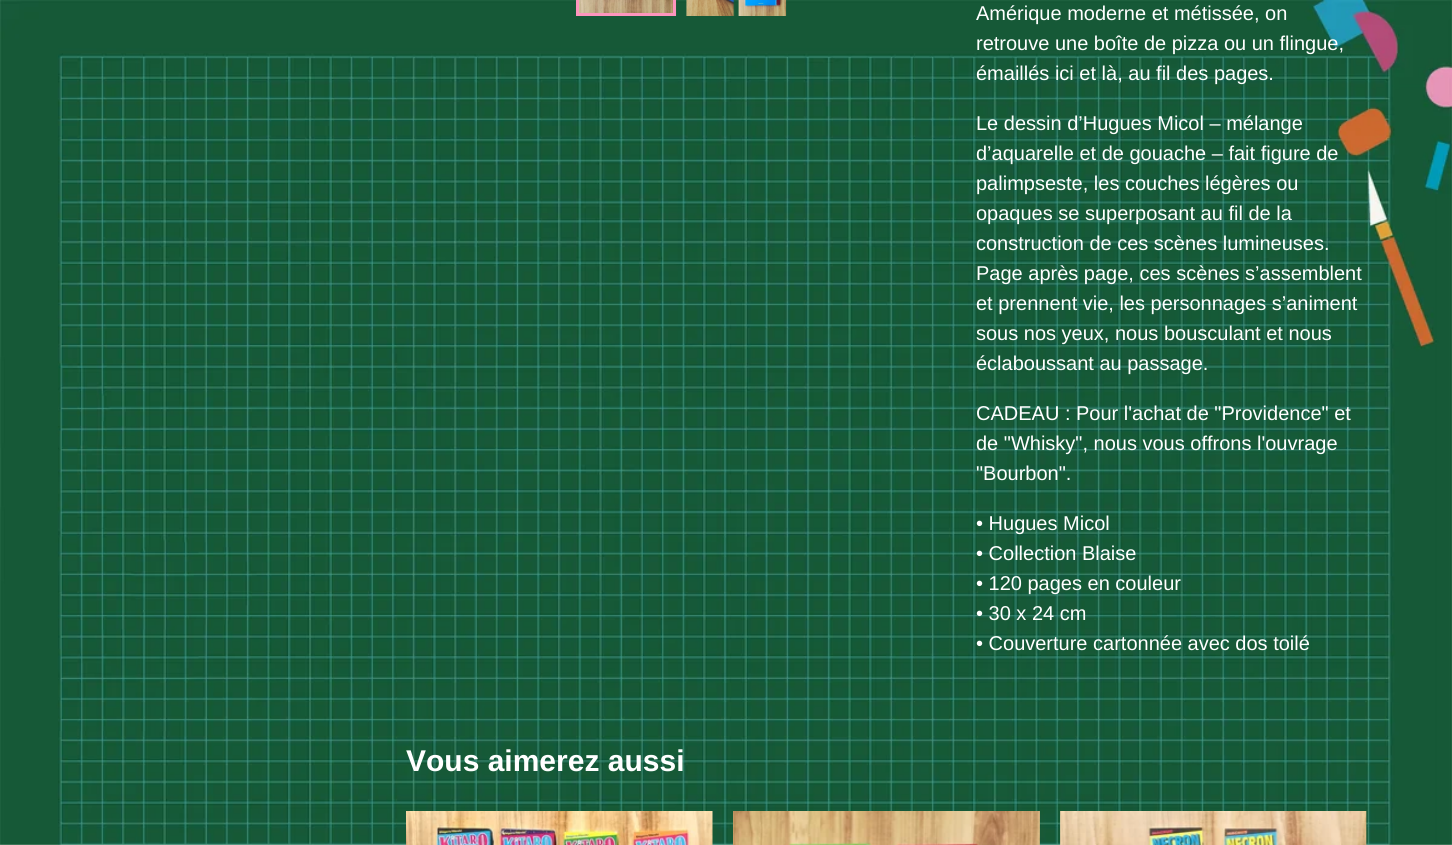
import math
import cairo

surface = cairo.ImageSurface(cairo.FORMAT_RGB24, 1452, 845)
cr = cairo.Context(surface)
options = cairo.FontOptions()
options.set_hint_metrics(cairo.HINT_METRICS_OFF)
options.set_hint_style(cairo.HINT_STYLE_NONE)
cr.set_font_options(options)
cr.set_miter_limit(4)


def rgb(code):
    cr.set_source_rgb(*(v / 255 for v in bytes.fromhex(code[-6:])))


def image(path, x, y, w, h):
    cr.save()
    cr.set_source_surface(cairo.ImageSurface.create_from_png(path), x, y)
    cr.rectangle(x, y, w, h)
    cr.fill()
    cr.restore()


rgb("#ffffff")
cr.paint()
image("img/1.png", 0, 0, 1452, 845)
image("img/2.png", 579, 0, 98, 16)
cr.rectangle(577.5, -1.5, 97, 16)
rgb("#fe95bd")
cr.set_line_width(3)
cr.stroke()
image("img/3.png", 686, 0, 101, 16)
image("img/4.png", 406, 811, 307, 34)
image("img/5.png", 733, 811, 307, 34)
image("img/6.png", 1060, 811, 307, 34)
cr.select_font_face("Liberation Sans")
cr.set_font_size(20)
rgb("#ffffff")
for x, y, s in [
    (976, 20, "Amérique moderne et métissée, on"),
    (976, 50, "retrouve une boîte de pizza ou un flingue,"),
    (976, 80, "émaillés ici et là, au fil des pages."),
    (976, 130, "Le dessin d’Hugues Micol – mélange"),
    (976, 160, "d’aquarelle et de gouache – fait figure de"),
    (976, 190, "palimpseste, les couches légères ou"),
    (976, 220, "opaques se superposant au fil de la"),
    (976, 250, "construction de ces scènes lumineuses."),
    (976, 280, "Page après page, ces scènes s’assemblent"),
    (976, 310, "et prennent vie, les personnages s’animent"),
    (976, 340, "sous nos yeux, nous bousculant et nous"),
    (976, 370, "éclaboussant au passage."),
    (976, 420, "CADEAU : Pour l'achat de \"Providence\" et"),
    (976, 450, "de \"Whisky\", nous vous offrons l'ouvrage"),
    (976, 480, "\"Bourbon\"."),
    (976, 530, "• Hugues Micol"),
    (976, 560, "• Collection Blaise"),
    (976, 590, "• 120 pages en couleur"),
    (976, 620, "• 30 x 24 cm"),
    (976, 650, "• Couverture cartonnée avec dos toilé"),
]:
    cr.move_to(x, y)
    cr.show_text(s)
cr.select_font_face("Liberation Sans", cairo.FONT_SLANT_NORMAL, cairo.FONT_WEIGHT_BOLD)
cr.set_font_size(30)
cr.move_to(406, 771)
cr.show_text("Vous aimerez aussi")
surface.write_to_png("page.png")
